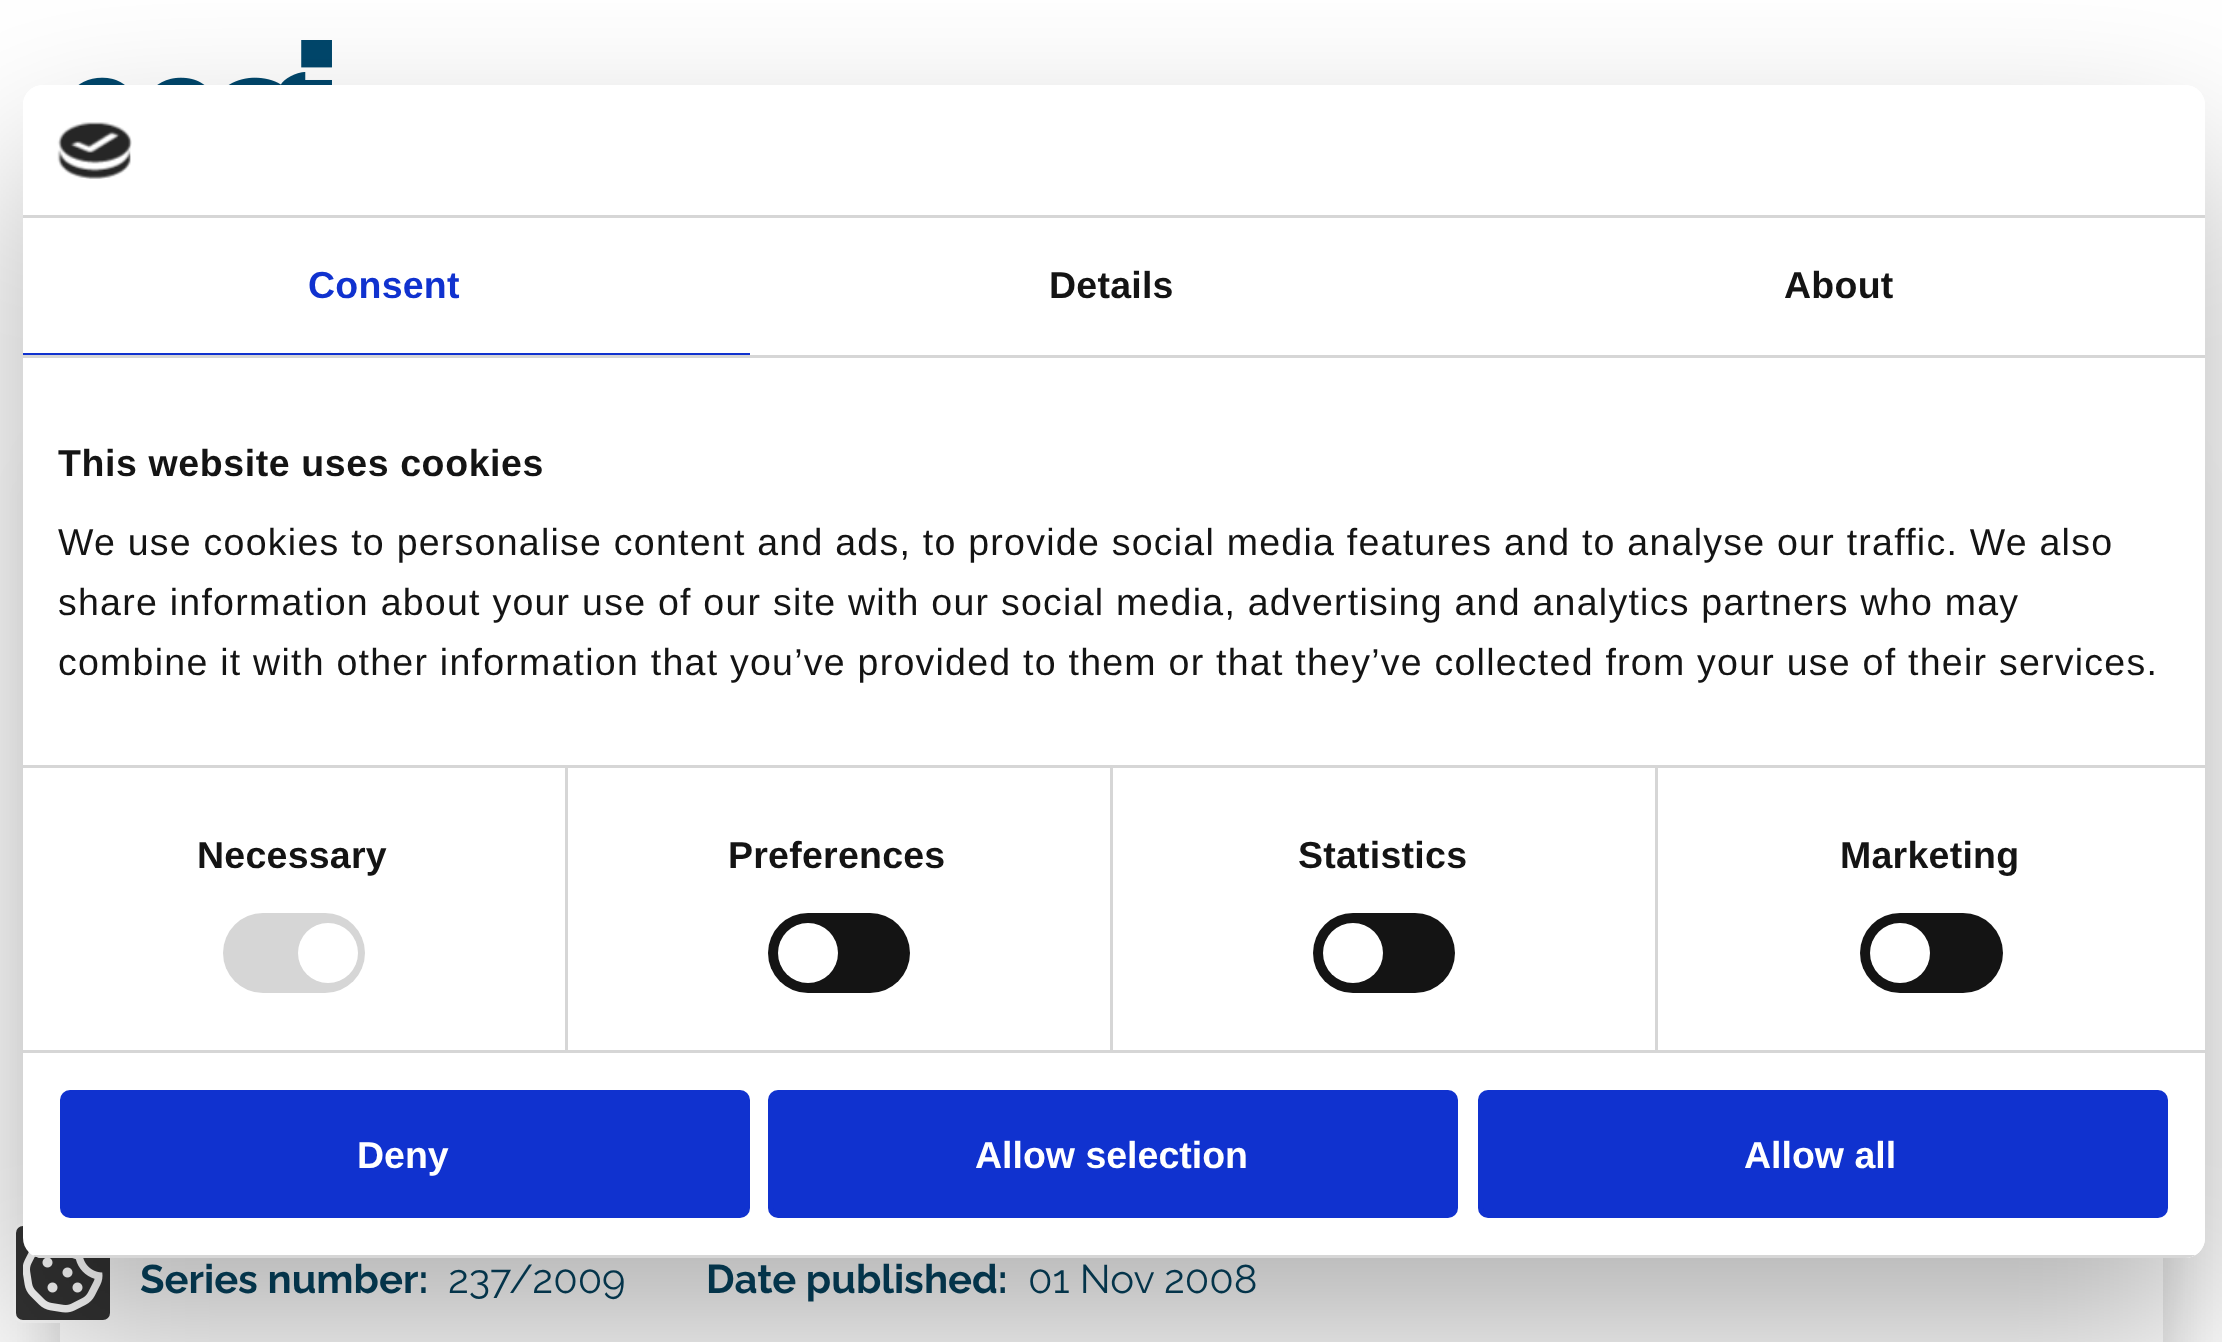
<!DOCTYPE html>
<meta charset="utf-8">
<style>body { margin: 0 } canvas { display: block }</style>
<canvas id="canvas" width="2222" height="1342"></canvas>
<img id="img1" src="img_02.png" hidden>
<img id="img2" src="img_03.png" hidden>
<img id="img3" src="img_01.png" hidden>
<script>
window.onload = function () {
	const canvas = document.getElementById("canvas");
	const ctx = canvas.getContext("2d");
	ctx.miterLimit = 4;
	ctx.fontKerning = "normal";
	function txt(s, x, y) {
		ctx.fillText(s, x, y);
	}
	function fill(x, y, w, h) {
		ctx.fillRect(x, y, w, h);
	}
	function round(x, y, w, h, r) {
		ctx.beginPath();
		ctx.roundRect(x, y, w, h, r);
		ctx.fill();
	}
	function img(id, x, y, w, h) {
		ctx.drawImage(document.getElementById(id), x, y, w, h);
	}

	ctx.fillStyle = "#FFFFFF";
	fill(0, 0, 2222, 1342);
	ctx.fillStyle = "rgba(0, 0, 0, 0.15)";
	ctx.filter = "blur(30px)";
	ctx.beginPath();
	ctx.roundRect(60, 453, 2103, 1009, 30);
	ctx.fill();
	ctx.filter = "none";
	ctx.fillStyle = "#FFFFFF";
	fill(60, 1258, 2103, 84);
	ctx.fillStyle = "#333333";
	ctx.beginPath();
	ctx.roundRect(14.5, 1224.5, 97, 97, 8.5);
	ctx.fill();
	ctx.strokeStyle = "#FFFFFF";
	ctx.lineWidth = 3;
	ctx.stroke();
	img("img1", 23, 1252, 80, 61);
	img("img2", 78, 40, 254, 45);
	ctx.save();
	ctx.beginPath();
	ctx.moveTo(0, 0);
	ctx.lineTo(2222, 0);
	ctx.lineTo(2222, 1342);
	ctx.lineTo(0, 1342);
	ctx.closePath();
	ctx.moveTo(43, 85);
	ctx.lineTo(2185, 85);
	ctx.bezierCurveTo(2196, 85, 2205, 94, 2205, 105);
	ctx.lineTo(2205, 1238);
	ctx.bezierCurveTo(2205, 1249, 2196, 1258, 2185, 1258);
	ctx.lineTo(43, 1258);
	ctx.bezierCurveTo(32, 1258, 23, 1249, 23, 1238);
	ctx.lineTo(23, 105);
	ctx.bezierCurveTo(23, 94, 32, 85, 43, 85);
	ctx.closePath();
	ctx.clip("evenodd");
	ctx.fillStyle = "rgba(0, 0, 0, 0.3)";
	ctx.filter = "blur(85px)";
	ctx.beginPath();
	ctx.roundRect(23, 165, 2182, 1173, 20);
	ctx.fill();
	ctx.filter = "none";
	ctx.restore();
	ctx.fillStyle = "#FFFFFF";
	round(23, 85, 2182, 1173, 20);
	ctx.fillStyle = "#D6D6D6";
	fill(23, 215, 2182, 3);
	img("img3", 57, 122, 75, 57);
	fill(23, 355, 2182, 3);
	ctx.fillStyle = "#1032CF";
	fill(23, 353, 727, 2);
	ctx.fillStyle = "#D6D6D6";
	fill(23, 765, 2182, 3);
	fill(23, 1050, 2182, 3);
	fill(565, 768, 3, 282);
	round(223, 913, 142, 80, 40);
	ctx.fillStyle = "#FFFFFF";
	ctx.beginPath();
	ctx.arc(328, 953, 30, 0, Math.PI * 2);
	ctx.fill();
	ctx.fillStyle = "#D6D6D6";
	fill(1110, 768, 3, 282);
	ctx.fillStyle = "#141414";
	round(768, 913, 142, 80, 40);
	ctx.fillStyle = "#FFFFFF";
	ctx.beginPath();
	ctx.arc(808, 953, 30, 0, Math.PI * 2);
	ctx.fill();
	ctx.fillStyle = "#D6D6D6";
	fill(1655, 768, 3, 282);
	ctx.fillStyle = "#141414";
	round(1313, 913, 142, 80, 40);
	ctx.fillStyle = "#FFFFFF";
	ctx.beginPath();
	ctx.arc(1353, 953, 30, 0, Math.PI * 2);
	ctx.fill();
	ctx.fillStyle = "#141414";
	round(1860, 913, 143, 80, 40);
	ctx.fillStyle = "#FFFFFF";
	ctx.beginPath();
	ctx.arc(1900, 953, 30, 0, Math.PI * 2);
	ctx.fill();
	ctx.save();
	ctx.beginPath();
	ctx.roundRect(23, 85, 2182, 1173, 20);
	ctx.clip();
	ctx.fillStyle = "#D6D6D6";
	fill(32, 1255, 2164, 3);
	ctx.restore();
	ctx.fillStyle = "#1032CF";
	ctx.beginPath();
	ctx.roundRect(62.5, 1092.5, 685, 123, 7.5);
	ctx.fill();
	ctx.strokeStyle = "#1032CF";
	ctx.lineWidth = 5;
	ctx.stroke();
	ctx.beginPath();
	ctx.roundRect(770.5, 1092.5, 685, 123, 7.5);
	ctx.fill();
	ctx.stroke();
	ctx.beginPath();
	ctx.roundRect(1480.5, 1092.5, 685, 123, 7.5);
	ctx.fill();
	ctx.stroke();
	ctx.letterSpacing = "0.25px";
	ctx.font = "bold 37.5px Liberation Sans";
	txt("Consent", 308, 298);
	ctx.fillStyle = "#141414";
	txt("Details", 1049, 298);
	txt("About", 1784, 298);
	ctx.letterSpacing = "0.6px";
	txt("This website uses cookies", 58, 476);
	ctx.letterSpacing = "1.25px";
	ctx.font = "37.5px Liberation Sans";
	txt("We use cookies to personalise content and ads, to provide social media features and to analyse our traffic. We also", 58, 555);
	txt("share information about your use of our site with our social media, advertising and analytics partners who may", 58, 615);
	txt("combine it with other information that you’ve provided to them or that they’ve collected from your use of their services.", 58, 675);
	ctx.letterSpacing = "0.25px";
	ctx.font = "bold 37.5px Liberation Sans";
	txt("Necessary", 197, 868);
	txt("Preferences", 728, 868);
	txt("Statistics", 1298, 868);
	txt("Marketing", 1840, 868);
	ctx.letterSpacing = "0px";
	ctx.fillStyle = "#FFFFFF";
	txt("Deny", 357, 1168);
	txt("Allow selection", 975, 1168);
	txt("Allow all", 1744, 1168);
	ctx.font = "100 40px Raleway";
	ctx.fillStyle = "#04344A";
	txt("Series number:", 140, 1293);
	ctx.font = "100 40px 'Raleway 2'";
	txt("237/2009", 448, 1293);
	ctx.font = "100 40px Raleway";
	txt("Date published:", 706, 1293);
	ctx.font = "100 40px 'Raleway 2'";
	txt("01 Nov 2008", 1028, 1293);
};
</script>
